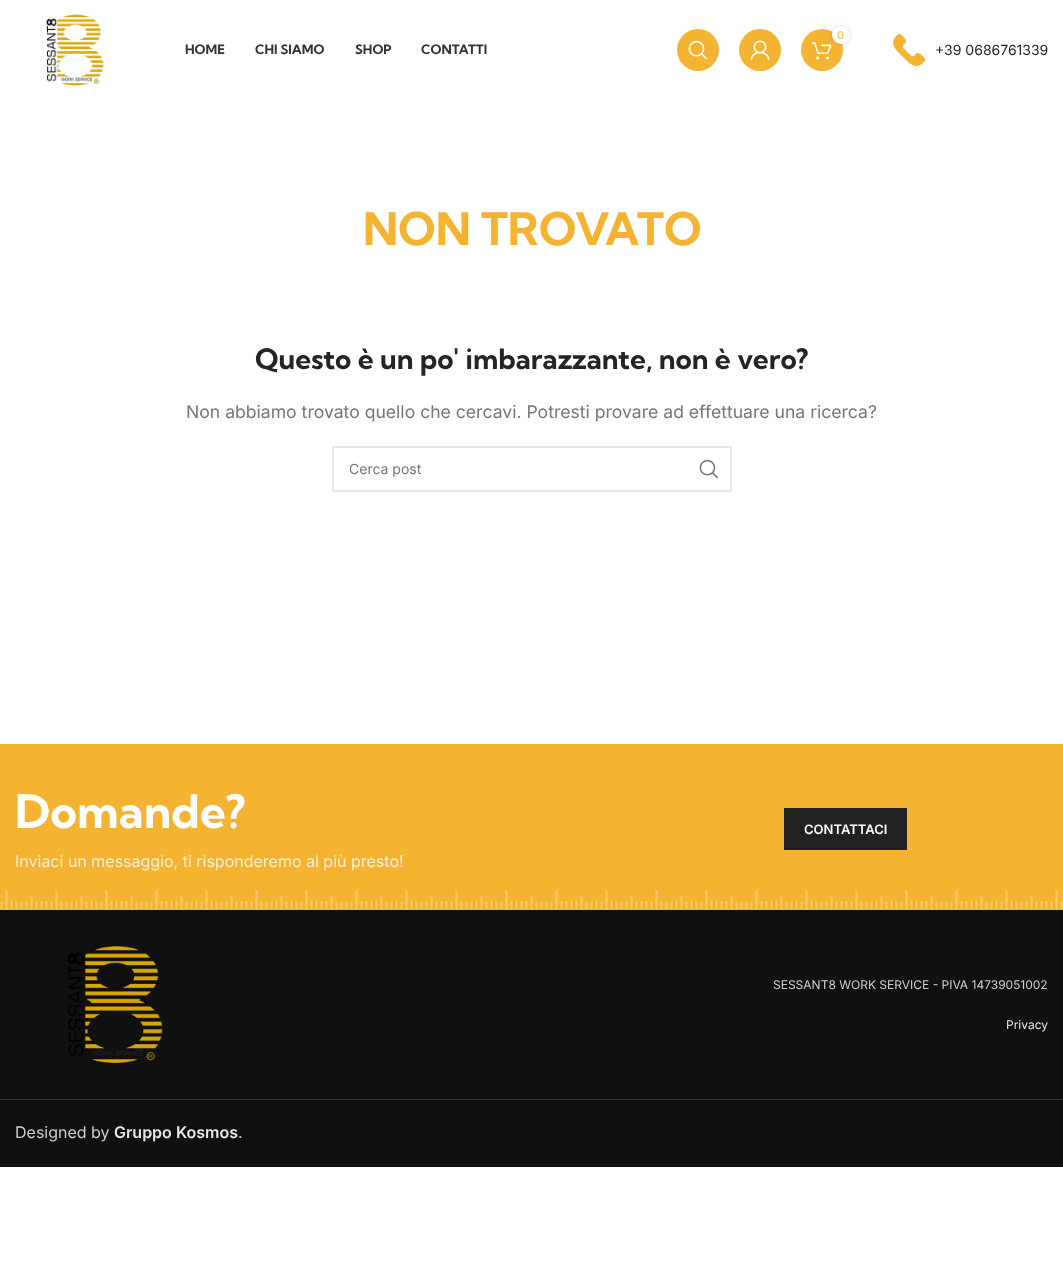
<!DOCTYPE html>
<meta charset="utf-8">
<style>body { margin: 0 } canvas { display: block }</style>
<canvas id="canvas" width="1063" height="1288"></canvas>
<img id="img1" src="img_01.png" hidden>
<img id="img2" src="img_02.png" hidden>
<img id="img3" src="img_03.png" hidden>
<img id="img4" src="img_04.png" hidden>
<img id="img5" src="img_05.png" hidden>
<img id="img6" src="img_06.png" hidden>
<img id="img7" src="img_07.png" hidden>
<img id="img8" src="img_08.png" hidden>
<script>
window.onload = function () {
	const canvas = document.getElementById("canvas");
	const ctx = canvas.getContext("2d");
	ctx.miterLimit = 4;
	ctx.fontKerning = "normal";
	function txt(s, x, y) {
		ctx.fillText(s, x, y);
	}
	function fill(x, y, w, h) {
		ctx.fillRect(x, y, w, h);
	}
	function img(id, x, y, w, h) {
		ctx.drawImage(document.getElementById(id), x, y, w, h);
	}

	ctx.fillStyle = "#FFFFFF";
	fill(0, 0, 1063, 1288);
	img("img1", 46, 14, 58, 72);
	ctx.fillStyle = "#F5B332";
	ctx.beginPath();
	ctx.arc(698, 50, 21, 0, Math.PI * 2);
	ctx.fill();
	img("img2", 688, 40, 20, 20);
	ctx.beginPath();
	ctx.arc(760, 50, 21, 0, Math.PI * 2);
	ctx.fill();
	img("img3", 750, 40, 20, 20);
	ctx.beginPath();
	ctx.arc(822, 50, 21, 0, Math.PI * 2);
	ctx.fill();
	img("img4", 812, 42, 20, 18);
	ctx.fillStyle = "rgba(0, 0, 0, 0.17)";
	ctx.filter = "blur(2px)";
	ctx.beginPath();
	ctx.roundRect(832, 26, 18, 18, 9);
	ctx.fill();
	ctx.filter = "none";
	ctx.fillStyle = "#FFFFFF";
	ctx.beginPath();
	ctx.arc(841, 35, 9, 0, Math.PI * 2);
	ctx.fill();
	img("img5", 893, 34, 32, 32);
	ctx.strokeStyle = "#E6E6E6";
	ctx.lineWidth = 2;
	ctx.strokeRect(333, 447, 398, 44);
	img("img6", 699, 459, 20, 20);
	ctx.fillStyle = "#101010";
	fill(0, 910, 1063, 257);
	ctx.fillStyle = "#F5B332";
	fill(0, 744, 1063, 166);
	img("img7", 0, 890, 1063, 20);
	ctx.fillStyle = "#212121";
	fill(784, 808, 123, 42);
	img("img8", 68, 946, 95, 117);
	ctx.fillStyle = "#343434";
	fill(0, 1099, 1063, 1);
	ctx.font = "bold 13px Kumbh Sans";
	ctx.fillStyle = "#333333";
	txt("HOME", 185, 54);
	txt("CHI SIAMO", 255, 54);
	txt("SHOP", 355, 54);
	txt("CONTATTI", 421, 54);
	ctx.font = "11px Inter";
	ctx.fillStyle = "#F5B332";
	txt("0", 837, 39);
	ctx.font = "14px Inter";
	ctx.fillStyle = "#242424";
	txt("+39 0686761339", 935, 55);
	ctx.font = "bold 44.75px Kumbh Sans";
	ctx.fillStyle = "#F5B332";
	txt("NON TROVATO", 363, 245);
	ctx.font = "bold 28px Kumbh Sans";
	ctx.fillStyle = "#242424";
	txt("Questo è un po' imbarazzante, non è vero?", 255, 369);
	ctx.font = "17.6px Inter";
	ctx.fillStyle = "#767676";
	txt("Non abbiamo trovato quello che cercavi. Potresti provare ad effettuare una ricerca?", 186, 418);
	ctx.font = "14px Inter";
	txt("Cerca post", 349, 474);
	ctx.font = "bold 46px Kumbh Sans";
	ctx.fillStyle = "#FFFFFF";
	txt("Domande?", 15, 828);
	ctx.font = "16px Inter";
	ctx.fillStyle = "#FDF0D6";
	txt("Inviaci un messaggio, ti risponderemo al più presto!", 15, 867);
	ctx.font = "600 13px Inter";
	ctx.fillStyle = "#FFFFFF";
	txt("CONTATTACI", 804, 834);
	ctx.font = "12px Inter";
	ctx.fillStyle = "#CFCFCF";
	txt("SESSANT8 WORK SERVICE - PIVA 14739051002", 773, 989);
	ctx.fillStyle = "#E7E7E7";
	txt("Privacy", 1006, 1029);
	ctx.font = "16px Inter";
	ctx.fillStyle = "#CFCFCF";
	txt("Designed by", 15, 1138);
	ctx.font = "600 16px Inter";
	ctx.fillStyle = "#E7E7E7";
	txt("Gruppo Kosmos", 114, 1138);
	ctx.font = "16px Inter";
	ctx.fillStyle = "#CFCFCF";
	txt(".", 238, 1138);
};
</script>
